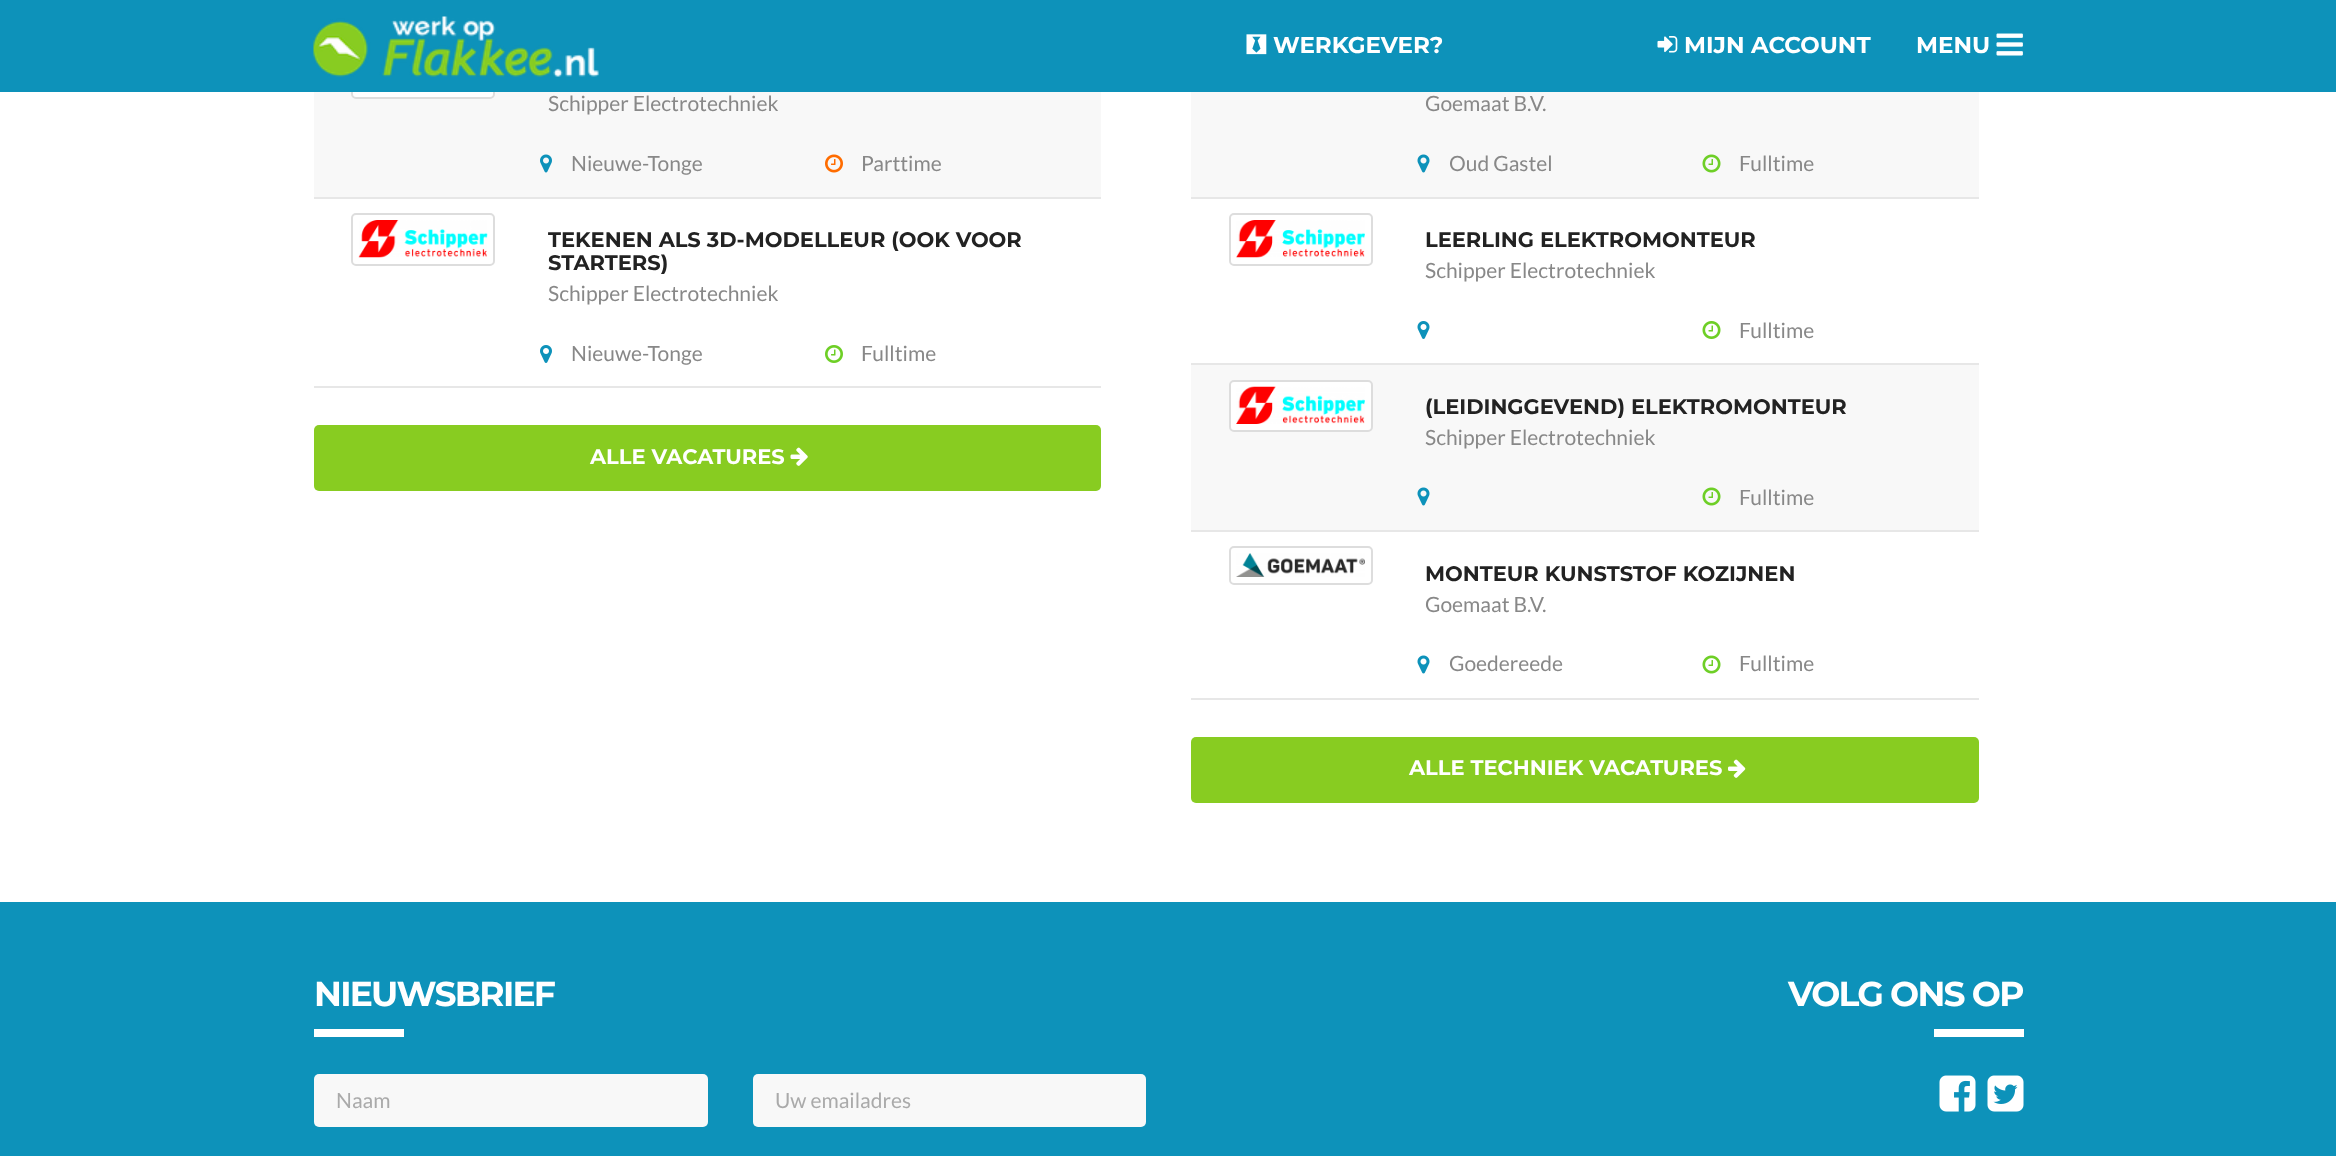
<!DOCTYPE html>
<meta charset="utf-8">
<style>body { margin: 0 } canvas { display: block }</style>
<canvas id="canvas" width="2336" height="1156"></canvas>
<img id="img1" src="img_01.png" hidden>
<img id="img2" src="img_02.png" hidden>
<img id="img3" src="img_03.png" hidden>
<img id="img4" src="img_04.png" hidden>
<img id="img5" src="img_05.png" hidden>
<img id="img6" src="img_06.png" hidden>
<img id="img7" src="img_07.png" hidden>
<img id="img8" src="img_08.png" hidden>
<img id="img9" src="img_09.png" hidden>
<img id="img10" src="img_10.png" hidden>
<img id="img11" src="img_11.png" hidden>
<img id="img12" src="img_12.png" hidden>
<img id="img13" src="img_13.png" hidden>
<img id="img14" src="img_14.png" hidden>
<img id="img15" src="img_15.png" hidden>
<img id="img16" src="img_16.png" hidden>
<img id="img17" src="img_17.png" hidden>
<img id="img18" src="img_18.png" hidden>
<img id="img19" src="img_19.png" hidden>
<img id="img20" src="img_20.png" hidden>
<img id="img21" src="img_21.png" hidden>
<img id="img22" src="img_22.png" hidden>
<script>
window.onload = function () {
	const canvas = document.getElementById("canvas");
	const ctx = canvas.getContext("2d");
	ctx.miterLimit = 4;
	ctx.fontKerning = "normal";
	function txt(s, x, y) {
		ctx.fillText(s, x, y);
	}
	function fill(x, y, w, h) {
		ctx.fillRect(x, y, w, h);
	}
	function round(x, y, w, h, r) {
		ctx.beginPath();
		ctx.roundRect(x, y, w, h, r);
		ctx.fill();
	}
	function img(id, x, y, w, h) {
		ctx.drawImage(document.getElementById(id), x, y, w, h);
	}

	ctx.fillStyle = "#FFFFFF";
	fill(0, 0, 2336, 1156);
	ctx.fillStyle = "#F8F8F8";
	fill(314, 92, 787, 105);
	ctx.fillStyle = "#FFFFFF";
	ctx.beginPath();
	ctx.roundRect(352, 48, 142, 50, 4);
	ctx.fill();
	ctx.strokeStyle = "#DDDDDD";
	ctx.lineWidth = 2;
	ctx.stroke();
	ctx.fillStyle = "#0D92BA";
	fill(0, 0, 2336, 92);
	img("img1", 313, 16, 286, 61);
	img("img2", 1246, 34, 21, 21);
	img("img3", 1657, 36, 21, 17);
	img("img4", 1996, 33, 27, 23);
	ctx.fillStyle = "#E7E7E7";
	fill(314, 197, 787, 2);
	img("img5", 540, 154, 12, 19);
	img("img6", 825, 154, 18, 19);
	fill(314, 386, 787, 2);
	ctx.beginPath();
	ctx.roundRect(352, 214, 142, 51, 4);
	ctx.stroke();
	img("img7", 358, 220, 130, 38);
	img("img8", 540, 345, 12, 18);
	img("img9", 825, 345, 18, 18);
	ctx.fillStyle = "#88CC21";
	round(314, 425, 787, 66, 5);
	img("img10", 790, 447, 18, 19);
	ctx.fillStyle = "#F8F8F8";
	fill(1191, 92, 788, 105);
	ctx.fillStyle = "#E7E7E7";
	fill(1191, 197, 788, 2);
	img("img11", 1417, 154, 13, 19);
	img("img12", 1702, 154, 19, 19);
	fill(1191, 363, 788, 2);
	ctx.beginPath();
	ctx.roundRect(1230, 214, 142, 51, 4);
	ctx.stroke();
	img("img13", 1236, 220, 129, 38);
	img("img14", 1417, 321, 13, 18);
	img("img15", 1702, 321, 19, 18);
	ctx.fillStyle = "#F8F8F8";
	fill(1191, 365, 788, 165);
	ctx.fillStyle = "#E7E7E7";
	fill(1191, 530, 788, 2);
	ctx.fillStyle = "#FFFFFF";
	ctx.beginPath();
	ctx.roundRect(1230, 381, 142, 50, 4);
	ctx.fill();
	ctx.stroke();
	img("img16", 1236, 386, 129, 38);
	img("img11", 1417, 487, 13, 19);
	img("img12", 1702, 487, 19, 19);
	ctx.fillStyle = "#E7E7E7";
	fill(1191, 698, 788, 2);
	ctx.beginPath();
	ctx.roundRect(1230, 547, 142, 37, 4);
	ctx.stroke();
	img("img17", 1236, 553, 129, 24);
	img("img18", 1417, 655, 13, 19);
	img("img19", 1702, 655, 19, 19);
	ctx.fillStyle = "#88CC21";
	round(1191, 737, 788, 66, 5);
	img("img20", 1728, 759, 18, 19);
	ctx.fillStyle = "#0D92BA";
	fill(0, 902, 2336, 254);
	ctx.fillStyle = "#FFFFFF";
	fill(314, 1029, 90, 8);
	ctx.fillStyle = "#F8F8F8";
	round(314, 1074, 394, 53, 5);
	round(753, 1074, 393, 53, 5);
	ctx.fillStyle = "#FFFFFF";
	fill(1934, 1029, 90, 8);
	img("img21", 1939, 1075, 37, 37);
	img("img22", 1987, 1075, 37, 37);
	ctx.font = "100 23px Montserrat";
	txt("WERKGEVER?", 1273, 53);
	txt("MIJN ACCOUNT", 1684, 53);
	txt("MENU", 1916, 53);
	ctx.font = "21px Lato";
	ctx.fillStyle = "#888888";
	txt("Schipper Electrotechniek", 548, 111);
	txt("Nieuwe-Tonge", 571, 171);
	txt("Parttime", 861, 171);
	ctx.font = "100 21px Montserrat";
	ctx.fillStyle = "#222222";
	txt("TEKENEN ALS 3D-MODELLEUR (OOK VOOR", 548, 247);
	txt("STARTERS)", 548, 270);
	ctx.font = "21px Lato";
	ctx.fillStyle = "#888888";
	txt("Schipper Electrotechniek", 548, 301);
	txt("Nieuwe-Tonge", 571, 361);
	txt("Fulltime", 861, 361);
	ctx.font = "100 21px Montserrat";
	ctx.fillStyle = "#FFFFFF";
	txt("ALLE VACATURES", 590, 464);
	ctx.font = "21px Lato";
	ctx.fillStyle = "#888888";
	txt("Goemaat B.V.", 1425, 111);
	txt("Oud Gastel", 1449, 171);
	txt("Fulltime", 1739, 171);
	ctx.font = "100 21px Montserrat";
	ctx.fillStyle = "#222222";
	txt("LEERLING ELEKTROMONTEUR", 1425, 247);
	ctx.font = "21px Lato";
	ctx.fillStyle = "#888888";
	txt("Schipper Electrotechniek", 1425, 278);
	txt("Fulltime", 1739, 338);
	ctx.font = "100 21px Montserrat";
	ctx.fillStyle = "#222222";
	txt("(LEIDINGGEVEND) ELEKTROMONTEUR", 1425, 414);
	ctx.font = "21px Lato";
	ctx.fillStyle = "#888888";
	txt("Schipper Electrotechniek", 1425, 445);
	txt("Fulltime", 1739, 505);
	ctx.font = "100 21px Montserrat";
	ctx.fillStyle = "#222222";
	txt("MONTEUR KUNSTSTOF KOZIJNEN", 1425, 581);
	ctx.font = "21px Lato";
	ctx.fillStyle = "#888888";
	txt("Goemaat B.V.", 1425, 612);
	txt("Goedereede", 1449, 671);
	txt("Fulltime", 1739, 671);
	ctx.font = "100 21px Montserrat";
	ctx.fillStyle = "#FFFFFF";
	txt("ALLE TECHNIEK VACATURES", 1409, 775);
	ctx.letterSpacing = "-1.75px";
	ctx.font = "100 34.5px Montserrat";
	txt("NIEUWSBRIEF", 314, 1006);
	ctx.letterSpacing = "0px";
	ctx.font = "21px Lato";
	ctx.fillStyle = "#AAAAAA";
	txt("Naam", 336, 1108);
	txt("Uw emailadres", 775, 1108);
	ctx.letterSpacing = "-1.75px";
	ctx.font = "100 34.5px Montserrat";
	ctx.fillStyle = "#FFFFFF";
	txt("VOLG ONS OP", 1788, 1006);
};
</script>
